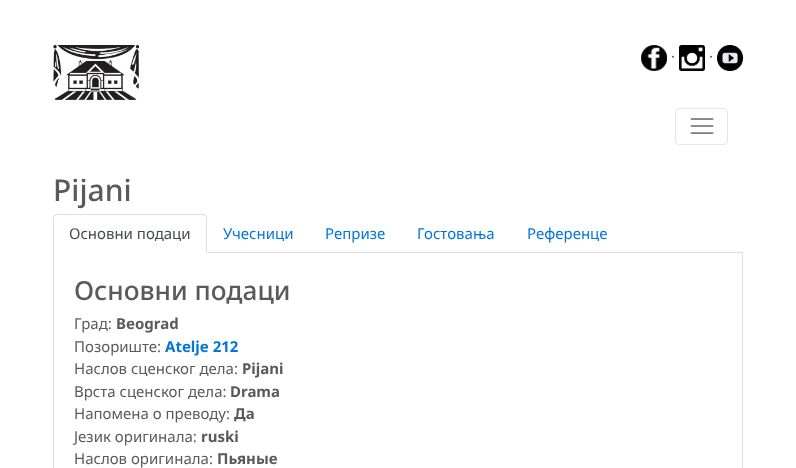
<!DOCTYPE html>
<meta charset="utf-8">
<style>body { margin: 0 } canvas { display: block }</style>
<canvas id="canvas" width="796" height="468"></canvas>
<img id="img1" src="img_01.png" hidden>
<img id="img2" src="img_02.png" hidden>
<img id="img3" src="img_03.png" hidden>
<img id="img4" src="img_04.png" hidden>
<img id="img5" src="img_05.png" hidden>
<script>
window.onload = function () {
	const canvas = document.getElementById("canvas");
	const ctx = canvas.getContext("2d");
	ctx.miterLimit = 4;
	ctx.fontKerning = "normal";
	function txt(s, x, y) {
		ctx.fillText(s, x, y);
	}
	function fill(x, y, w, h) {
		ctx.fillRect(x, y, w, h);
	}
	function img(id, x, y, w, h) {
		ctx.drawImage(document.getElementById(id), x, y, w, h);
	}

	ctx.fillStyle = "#FFFFFF";
	fill(0, 0, 796, 468);
	img("img1", 53, 45, 86, 55);
	img("img2", 641, 45, 26, 26);
	img("img3", 679, 45, 26, 26);
	img("img4", 717, 45, 26, 26);
	ctx.beginPath();
	ctx.roundRect(675.5, 108.5, 52, 36, 3.5);
	ctx.strokeStyle = "#E6E6E6";
	ctx.stroke();
	img("img5", 690, 118, 24, 16);
	ctx.fillStyle = "#DDDDDD";
	fill(207, 252, 536, 1);
	ctx.beginPath();
	ctx.moveTo(57, 214);
	ctx.lineTo(54, 215);
	ctx.lineTo(55, 216);
	ctx.lineTo(57, 215);
	ctx.lineTo(203, 215);
	ctx.lineTo(205, 216);
	ctx.lineTo(206, 215);
	ctx.lineTo(203, 214);
	ctx.closePath();
	ctx.fill();
	ctx.beginPath();
	ctx.moveTo(207, 253);
	ctx.lineTo(207, 218);
	ctx.bezierCurveTo(207, 217, 206.5, 216, 206, 215);
	ctx.lineTo(205, 216);
	ctx.bezierCurveTo(206, 216, 206, 217, 206, 218);
	ctx.lineTo(206, 252);
	ctx.closePath();
	ctx.fill();
	ctx.fillStyle = "#FFFFFF";
	ctx.beginPath();
	ctx.moveTo(207, 253);
	ctx.lineTo(206, 252);
	ctx.lineTo(54, 252);
	ctx.lineTo(53, 253);
	ctx.closePath();
	ctx.fill();
	ctx.fillStyle = "#DDDDDD";
	ctx.beginPath();
	ctx.moveTo(53, 253);
	ctx.lineTo(54, 252);
	ctx.lineTo(54, 218);
	ctx.bezierCurveTo(54, 217, 54, 216, 55, 216);
	ctx.lineTo(54, 215);
	ctx.bezierCurveTo(53.5, 216, 53, 217, 53, 218);
	ctx.closePath();
	ctx.fill();
	ctx.fillStyle = "#E0E0E0";
	fill(742, 253, 1, 215);
	fill(53, 253, 1, 215);
	ctx.font = "15px Noto Sans";
	ctx.fillStyle = "#5A5A5A";
	txt("·", 671, 62);
	txt("·", 709, 62);
	ctx.font = "500 30px Noto Sans";
	txt("Pijani", 53, 201);
	ctx.font = "15px Noto Sans";
	ctx.fillStyle = "#464A4C";
	txt("Основни подаци", 69, 239);
	ctx.fillStyle = "#0275D8";
	txt("Учесници", 223, 239);
	txt("Репризе", 325, 239);
	txt("Гостовања", 417, 239);
	txt("Референце", 527, 239);
	ctx.font = "500 26.25px Noto Sans";
	ctx.fillStyle = "#5A5A5A";
	txt("Основни подаци", 74, 300);
	ctx.font = "15px Noto Sans";
	txt("Град:", 74, 329);
	ctx.font = "bold 15px Noto Sans";
	txt("Beograd", 116, 329);
	ctx.font = "15px Noto Sans";
	txt("Позориште:", 74, 352);
	ctx.font = "bold 15px Noto Sans";
	ctx.fillStyle = "#0275D8";
	txt("Atelje 212", 165, 352);
	ctx.font = "15px Noto Sans";
	ctx.fillStyle = "#5A5A5A";
	txt("Наслов сценског дела:", 74, 374);
	ctx.font = "bold 15px Noto Sans";
	txt("Pijani", 242, 374);
	ctx.font = "15px Noto Sans";
	txt("Врста сценског дела:", 74, 397);
	ctx.font = "bold 15px Noto Sans";
	txt("Drama", 230, 397);
	ctx.font = "15px Noto Sans";
	txt("Напомена о преводу:", 74, 419);
	ctx.font = "bold 15px Noto Sans";
	txt("Да", 234, 419);
	ctx.font = "15px Noto Sans";
	txt("Језик оригинала:", 74, 442);
	ctx.font = "bold 15px Noto Sans";
	txt("ruski", 201, 442);
	ctx.font = "15px Noto Sans";
	txt("Наслов оригинала:", 74, 464);
	ctx.font = "bold 15px Noto Sans";
	txt("Пьяные", 217, 464);
};
</script>
